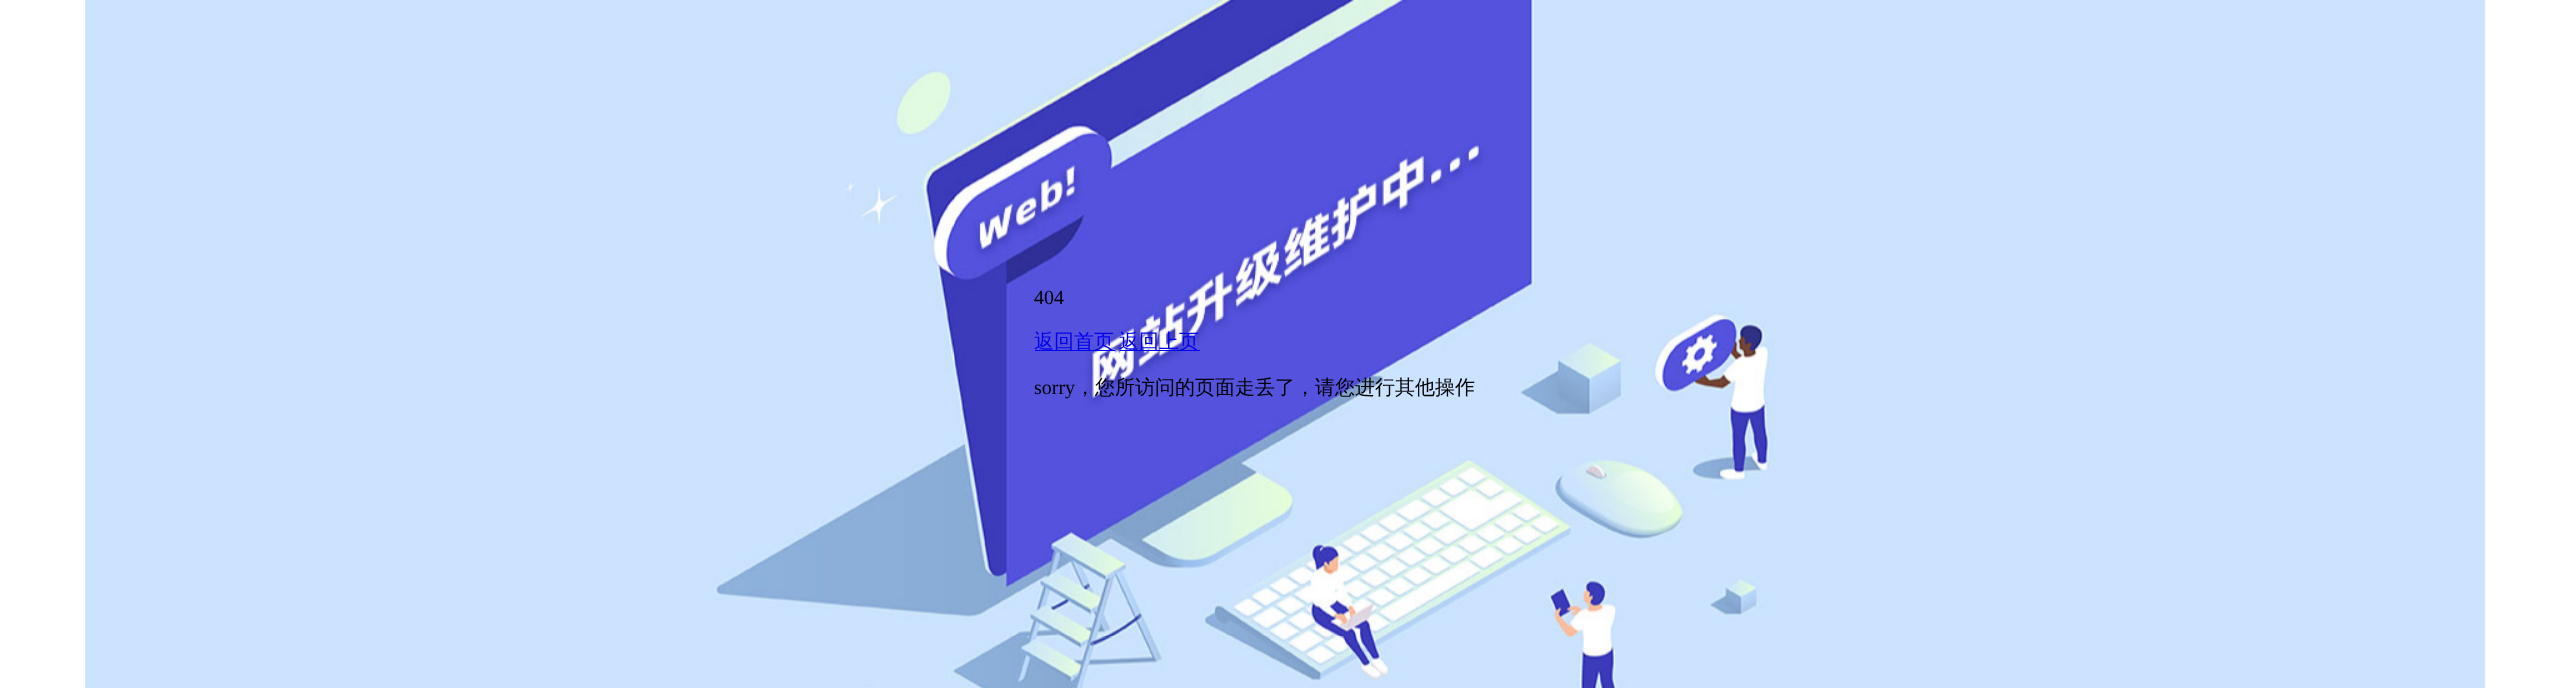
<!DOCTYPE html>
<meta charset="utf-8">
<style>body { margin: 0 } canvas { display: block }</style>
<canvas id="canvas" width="2568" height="688"></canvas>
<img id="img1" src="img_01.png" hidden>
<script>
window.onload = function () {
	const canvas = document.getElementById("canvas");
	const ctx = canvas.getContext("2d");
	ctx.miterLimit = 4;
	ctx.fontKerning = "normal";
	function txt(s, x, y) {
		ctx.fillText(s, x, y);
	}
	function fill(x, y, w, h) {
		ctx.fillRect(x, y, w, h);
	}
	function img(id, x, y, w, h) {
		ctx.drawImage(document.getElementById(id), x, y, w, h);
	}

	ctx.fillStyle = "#FFFFFF";
	fill(0, 0, 2568, 688);
	img("img1", 85, 0, 2401, 688);
	ctx.fillStyle = "#0000EE";
	fill(1035, 350, 80, 1);
	fill(1120, 350, 80, 1);
	ctx.font = "20px Liberation Serif";
	ctx.fillStyle = "#000000";
	txt("404", 1034, 304);
	ctx.font = "500 20px WenQuanYi Zen Hei";
	ctx.fillStyle = "#0000EE";
	txt("返回首页", 1034, 348);
	txt("返回上页", 1119, 348);
	ctx.font = "20px Liberation Serif";
	ctx.fillStyle = "#000000";
	txt("sorry", 1034, 394);
	ctx.font = "500 20px WenQuanYi Zen Hei";
	txt("，您所访问的页面走丢了，请您进行其他操作", 1075, 394);
};
</script>
